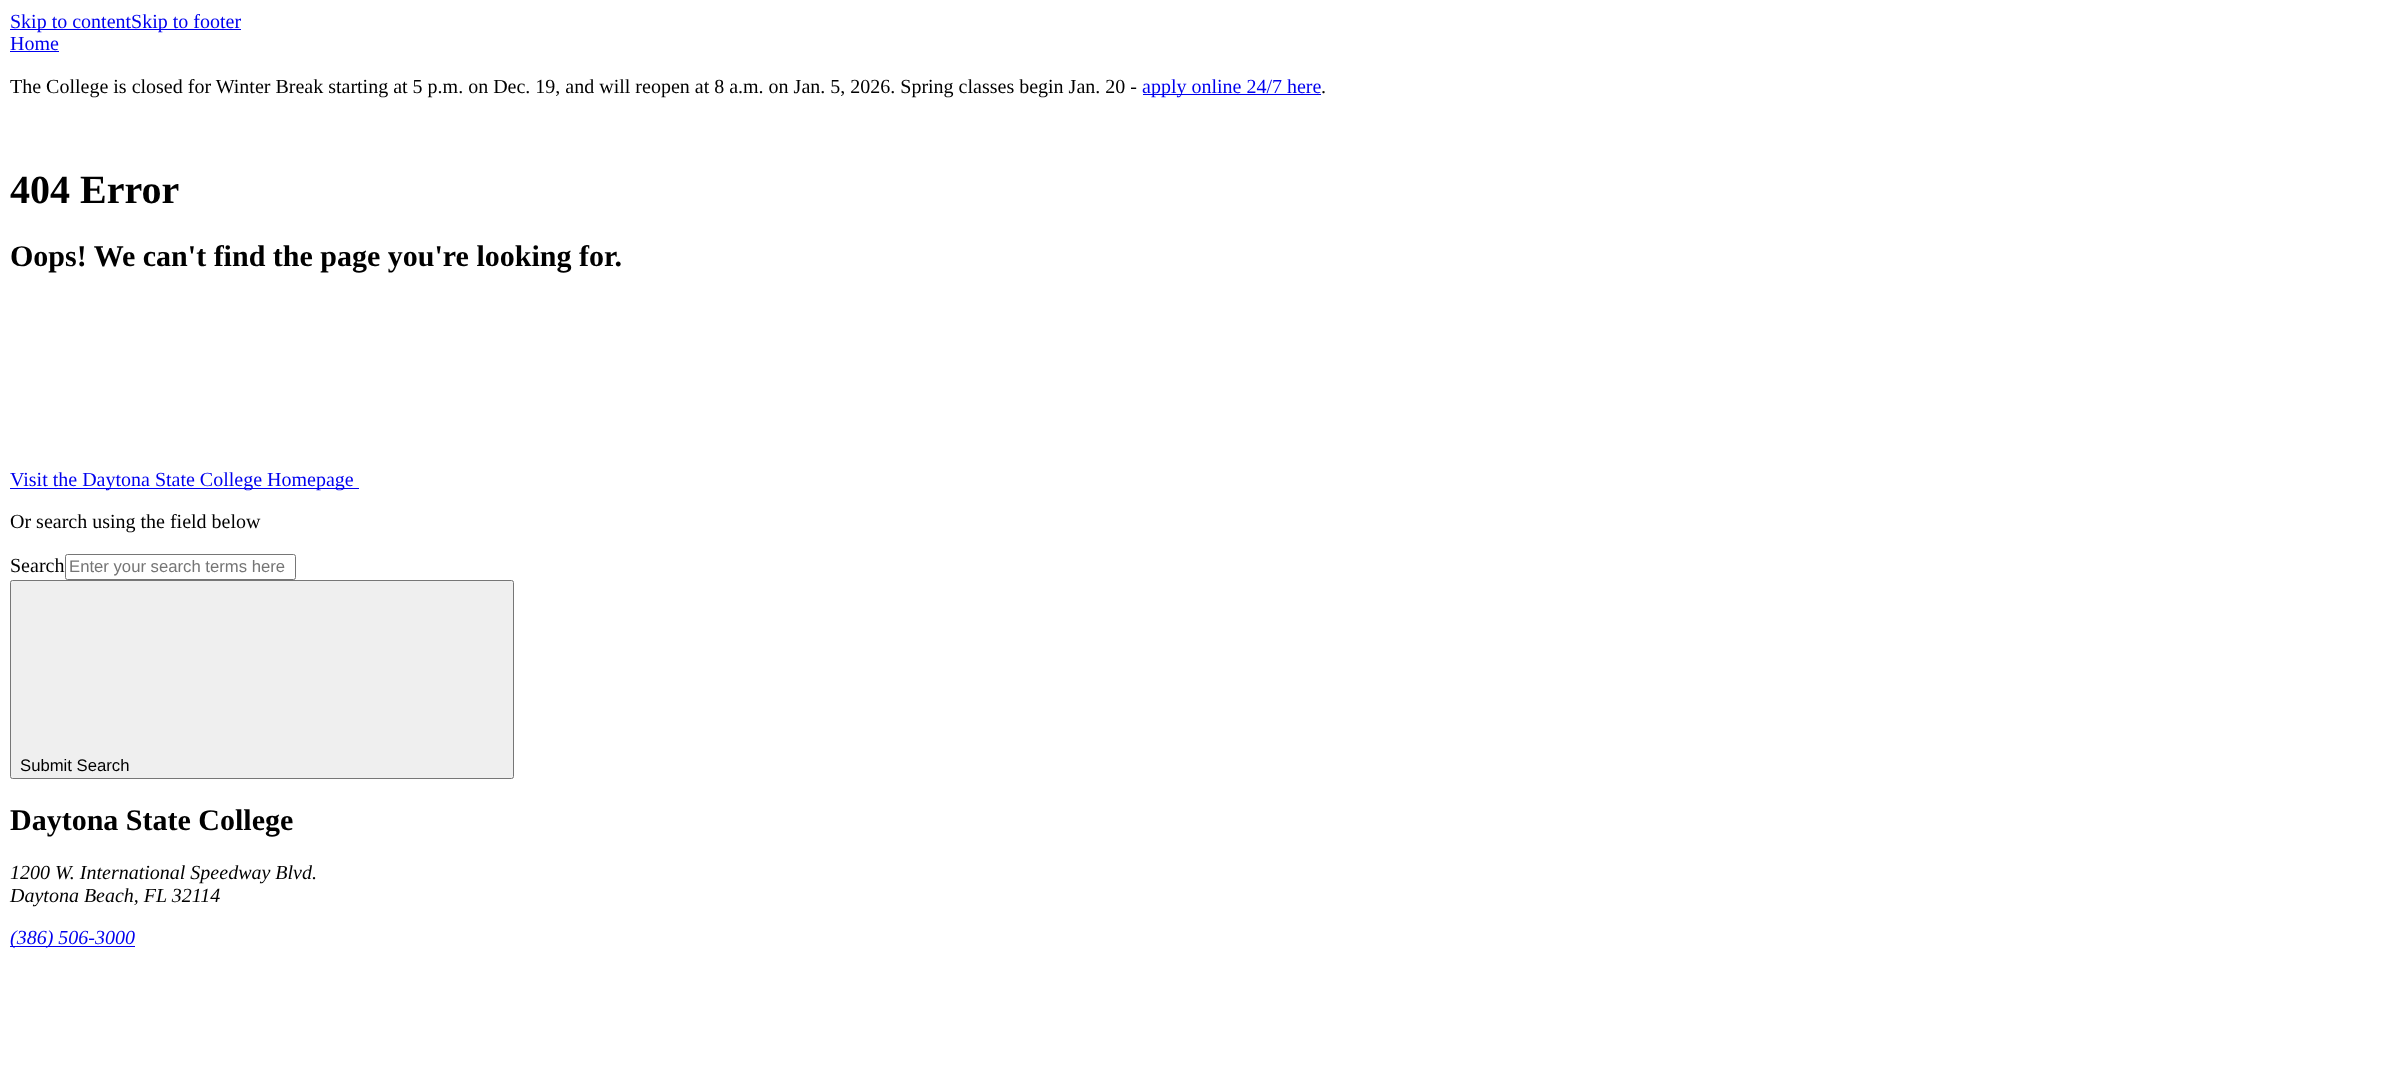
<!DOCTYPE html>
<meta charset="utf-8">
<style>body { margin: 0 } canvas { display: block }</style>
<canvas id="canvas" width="2387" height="1083"></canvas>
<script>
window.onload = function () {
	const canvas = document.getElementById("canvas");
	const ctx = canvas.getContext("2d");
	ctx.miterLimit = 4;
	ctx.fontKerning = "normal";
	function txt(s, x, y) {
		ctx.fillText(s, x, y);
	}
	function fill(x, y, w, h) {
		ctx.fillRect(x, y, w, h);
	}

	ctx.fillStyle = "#FFFFFF";
	fill(0, 0, 2387, 1083);
	ctx.fillStyle = "#0000EE";
	fill(10, 29, 231, 1);
	fill(10, 51, 49, 1);
	fill(1143, 94, 178, 1);
	fill(10, 488, 349, 1);
	ctx.beginPath();
	ctx.roundRect(65.5, 554.5, 230, 25, 2);
	ctx.strokeStyle = "#767676";
	ctx.stroke();
	ctx.fillStyle = "#EFEFEF";
	ctx.beginPath();
	ctx.roundRect(10.5, 580.5, 503, 198, 2);
	ctx.fill();
	ctx.stroke();
	ctx.fillStyle = "#0000EE";
	fill(10, 946, 125, 1);
	ctx.font = "20px Liberation Serif";
	txt("Skip to contentSkip to footer", 10, 28);
	txt("Home", 10, 50);
	ctx.fillStyle = "#000000";
	txt("The College is closed for Winter Break starting at 5 p.m. on Dec. 19, and will reopen at 8 a.m. on Jan. 5, 2026. Spring classes begin Jan. 20 -", 10, 93);
	ctx.fillStyle = "#0000EE";
	txt("apply online 24/7 here", 1142, 93);
	ctx.fillStyle = "#000000";
	txt(".", 1321, 93);
	ctx.font = "bold 40px Liberation Serif";
	txt("404 Error", 10, 203);
	ctx.font = "bold 30px Liberation Serif";
	txt("Oops! We can't find the page you're looking for.", 10, 266);
	ctx.font = "20px Liberation Serif";
	ctx.fillStyle = "#0000EE";
	txt("Visit the Daytona State College Homepage", 10, 486);
	ctx.fillStyle = "#000000";
	txt("Or search using the field below", 10, 528);
	txt("Search", 10, 572);
	ctx.font = "16.7px Liberation Sans";
	ctx.fillStyle = "#757575";
	txt("Enter your search terms here", 69, 572);
	ctx.fillStyle = "#000000";
	txt("Submit Search", 20, 771);
	ctx.font = "bold 30px Liberation Serif";
	txt("Daytona State College", 10, 830);
	ctx.font = "italic 20px Liberation Serif";
	txt("1200 W. International Speedway Blvd.", 10, 879);
	txt("Daytona Beach, FL 32114", 10, 902);
	ctx.fillStyle = "#0000EE";
	txt("(386) 506-3000", 10, 944);
};
</script>
